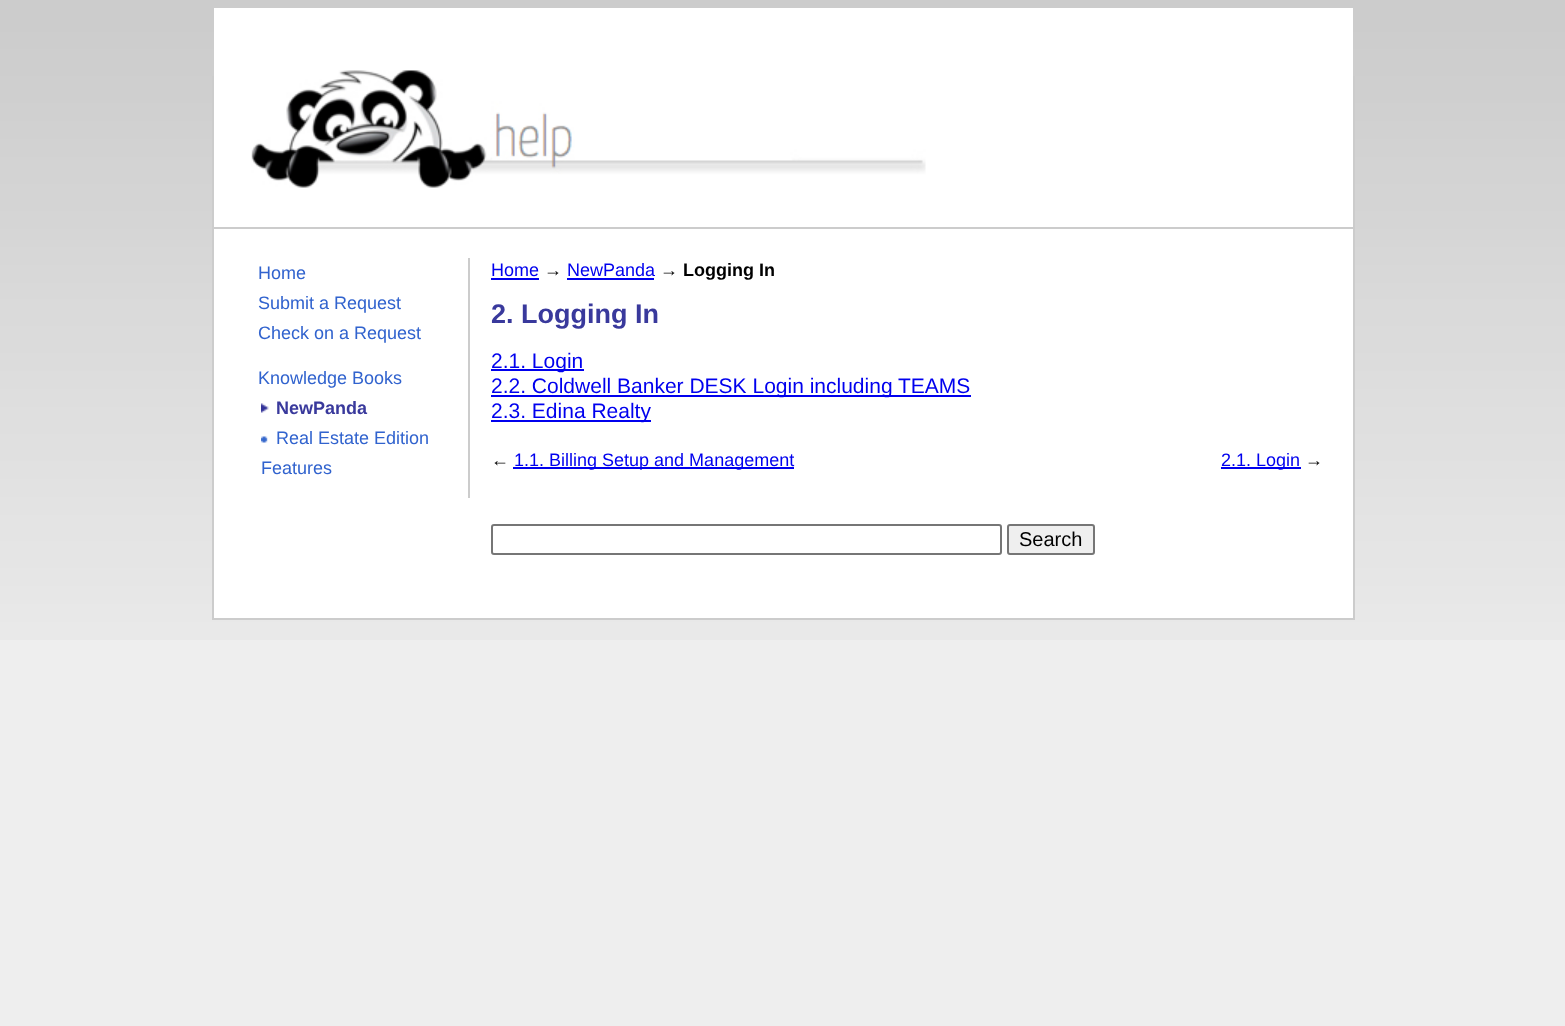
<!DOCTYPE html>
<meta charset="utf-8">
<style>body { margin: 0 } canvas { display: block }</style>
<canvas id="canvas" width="1565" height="1026"></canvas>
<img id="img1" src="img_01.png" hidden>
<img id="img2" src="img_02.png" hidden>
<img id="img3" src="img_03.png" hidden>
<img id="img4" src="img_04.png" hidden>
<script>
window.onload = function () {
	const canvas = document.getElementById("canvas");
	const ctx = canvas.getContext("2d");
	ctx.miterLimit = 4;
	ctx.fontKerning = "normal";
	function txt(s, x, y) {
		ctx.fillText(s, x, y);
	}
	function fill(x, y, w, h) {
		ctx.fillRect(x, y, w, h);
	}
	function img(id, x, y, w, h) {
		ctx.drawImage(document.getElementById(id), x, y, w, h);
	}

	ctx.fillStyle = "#EEEEEE";
	fill(0, 0, 1565, 1026);
	img("img1", 0, 0, 1565, 640);
	ctx.fillStyle = "#FFFFFF";
	fill(214, 8, 1139, 610);
	ctx.fillStyle = "#CCCCCC";
	fill(1353, 76, 2, 544);
	fill(212, 618, 1143, 2);
	fill(212, 76, 2, 544);
	fill(213, 227, 1140, 2);
	img("img2", 251, 70, 675, 118);
	fill(468, 258, 2, 240);
	img("img3", 261, 403, 8, 10);
	img("img4", 261, 436, 7, 7);
	ctx.fillStyle = "#0000EE";
	fill(491, 278, 48, 2);
	fill(567, 278, 87, 2);
	fill(491, 369, 93, 2);
	fill(491, 395, 480, 2);
	fill(491, 420, 160, 2);
	fill(513, 467, 281, 2);
	fill(1221, 467, 80, 2);
	ctx.beginPath();
	ctx.roundRect(492, 525, 509, 29, 2);
	ctx.strokeStyle = "#767676";
	ctx.lineWidth = 2;
	ctx.stroke();
	ctx.fillStyle = "#EFEFEF";
	ctx.beginPath();
	ctx.roundRect(1008, 525, 86, 29, 2);
	ctx.fill();
	ctx.stroke();
	ctx.font = "18px Liberation Sans";
	ctx.fillStyle = "#3163CE";
	txt("Home", 258, 279);
	txt("Submit a Request", 258, 309);
	txt("Check on a Request", 258, 339);
	txt("Knowledge Books", 258, 384);
	ctx.font = "bold 18px Liberation Sans";
	ctx.fillStyle = "#39399C";
	txt("NewPanda", 276, 414);
	ctx.font = "18px Liberation Sans";
	ctx.fillStyle = "#3163CE";
	txt("Real Estate Edition", 276, 444);
	txt("Features", 261, 474);
	ctx.fillStyle = "#0000EE";
	txt("Home", 491, 276);
	ctx.fillStyle = "#000000";
	txt("→", 544, 276);
	ctx.fillStyle = "#0000EE";
	txt("NewPanda", 567, 276);
	ctx.fillStyle = "#000000";
	txt("→", 660, 276);
	ctx.font = "bold 18px Liberation Sans";
	txt("Logging In", 683, 276);
	ctx.font = "bold 27px Liberation Sans";
	ctx.fillStyle = "#39399C";
	txt("2. Logging In", 491, 323);
	ctx.font = "21px Liberation Sans";
	ctx.fillStyle = "#0000EE";
	txt("2.1. Login", 491, 368);
	txt("2.2. Coldwell Banker DESK Login including TEAMS", 491, 393);
	txt("2.3. Edina Realty", 491, 418);
	ctx.font = "18px Liberation Sans";
	ctx.fillStyle = "#000000";
	txt("←", 491, 466);
	ctx.fillStyle = "#0000EE";
	txt("1.1. Billing Setup and Management", 514, 466);
	txt("2.1. Login", 1221, 466);
	ctx.fillStyle = "#000000";
	txt("→", 1305, 466);
	ctx.font = "20px Liberation Sans";
	txt("Search", 1019, 546);
};
</script>
